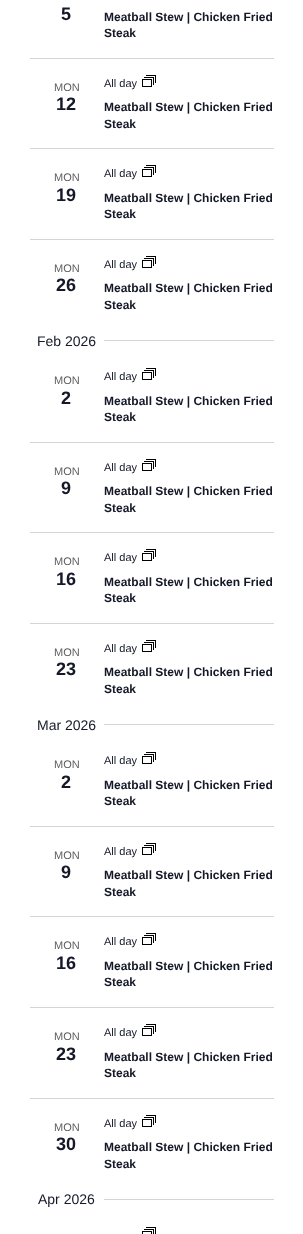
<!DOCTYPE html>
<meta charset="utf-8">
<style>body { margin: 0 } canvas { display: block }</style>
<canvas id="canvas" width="303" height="1234"></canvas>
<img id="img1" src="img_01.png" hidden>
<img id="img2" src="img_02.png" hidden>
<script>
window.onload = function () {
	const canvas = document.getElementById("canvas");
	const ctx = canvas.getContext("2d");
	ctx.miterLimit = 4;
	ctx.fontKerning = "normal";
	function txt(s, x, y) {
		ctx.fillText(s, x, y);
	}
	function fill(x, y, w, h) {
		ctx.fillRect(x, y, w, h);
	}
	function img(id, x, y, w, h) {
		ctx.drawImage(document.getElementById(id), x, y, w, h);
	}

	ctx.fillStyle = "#FFFFFF";
	fill(0, 0, 303, 1234);
	ctx.fillStyle = "#D5D5D5";
	fill(30, 58, 244, 1);
	img("img1", 142, 75, 14, 12);
	fill(30, 148, 244, 1);
	img("img1", 142, 165, 14, 12);
	fill(30, 239, 244, 1);
	img("img1", 142, 256, 14, 12);
	fill(104, 340, 170, 1);
	img("img1", 142, 368, 14, 12);
	fill(30, 442, 244, 1);
	img("img1", 142, 459, 14, 12);
	fill(30, 532, 244, 1);
	img("img1", 142, 549, 14, 12);
	fill(30, 623, 244, 1);
	img("img1", 142, 640, 14, 12);
	fill(104, 724, 170, 1);
	img("img1", 142, 752, 14, 12);
	fill(30, 826, 244, 1);
	img("img1", 142, 843, 14, 12);
	fill(30, 916, 244, 1);
	img("img1", 142, 933, 14, 12);
	fill(30, 1007, 244, 1);
	img("img1", 142, 1024, 14, 12);
	fill(30, 1098, 244, 1);
	img("img1", 142, 1115, 14, 12);
	fill(104, 1199, 170, 1);
	img("img2", 142, 1227, 14, 7);
	ctx.font = "bold 18px Liberation Sans";
	ctx.fillStyle = "#141827";
	txt("5", 61, 20);
	ctx.font = "bold 12px Liberation Sans";
	txt("Meatball Stew | Chicken Fried", 104, 21);
	txt("Steak", 104, 37);
	ctx.font = "11px Liberation Sans";
	ctx.fillStyle = "#5D5D5D";
	txt("MON", 54, 91);
	ctx.font = "bold 18px Liberation Sans";
	ctx.fillStyle = "#141827";
	txt("12", 56, 110);
	ctx.font = "11px Liberation Sans";
	txt("All day", 104, 87);
	ctx.font = "bold 12px Liberation Sans";
	txt("Meatball Stew | Chicken Fried", 104, 111);
	txt("Steak", 104, 128);
	ctx.font = "11px Liberation Sans";
	ctx.fillStyle = "#5D5D5D";
	txt("MON", 54, 181);
	ctx.font = "bold 18px Liberation Sans";
	ctx.fillStyle = "#141827";
	txt("19", 56, 201);
	ctx.font = "11px Liberation Sans";
	txt("All day", 104, 177);
	ctx.font = "bold 12px Liberation Sans";
	txt("Meatball Stew | Chicken Fried", 104, 202);
	txt("Steak", 104, 218);
	ctx.font = "11px Liberation Sans";
	ctx.fillStyle = "#5D5D5D";
	txt("MON", 54, 272);
	ctx.font = "bold 18px Liberation Sans";
	ctx.fillStyle = "#141827";
	txt("26", 56, 291);
	ctx.font = "11px Liberation Sans";
	txt("All day", 104, 268);
	ctx.font = "bold 12px Liberation Sans";
	txt("Meatball Stew | Chicken Fried", 104, 292);
	txt("Steak", 104, 309);
	ctx.font = "14px Liberation Sans";
	txt("Feb 2026", 37, 346);
	ctx.font = "11px Liberation Sans";
	ctx.fillStyle = "#5D5D5D";
	txt("MON", 54, 384);
	ctx.font = "bold 18px Liberation Sans";
	ctx.fillStyle = "#141827";
	txt("2", 61, 404);
	ctx.font = "11px Liberation Sans";
	txt("All day", 104, 380);
	ctx.font = "bold 12px Liberation Sans";
	txt("Meatball Stew | Chicken Fried", 104, 405);
	txt("Steak", 104, 421);
	ctx.font = "11px Liberation Sans";
	ctx.fillStyle = "#5D5D5D";
	txt("MON", 54, 475);
	ctx.font = "bold 18px Liberation Sans";
	ctx.fillStyle = "#141827";
	txt("9", 61, 494);
	ctx.font = "11px Liberation Sans";
	txt("All day", 104, 471);
	ctx.font = "bold 12px Liberation Sans";
	txt("Meatball Stew | Chicken Fried", 104, 495);
	txt("Steak", 104, 512);
	ctx.font = "11px Liberation Sans";
	ctx.fillStyle = "#5D5D5D";
	txt("MON", 54, 565);
	ctx.font = "bold 18px Liberation Sans";
	ctx.fillStyle = "#141827";
	txt("16", 56, 585);
	ctx.font = "11px Liberation Sans";
	txt("All day", 104, 561);
	ctx.font = "bold 12px Liberation Sans";
	txt("Meatball Stew | Chicken Fried", 104, 586);
	txt("Steak", 104, 602);
	ctx.font = "11px Liberation Sans";
	ctx.fillStyle = "#5D5D5D";
	txt("MON", 54, 656);
	ctx.font = "bold 18px Liberation Sans";
	ctx.fillStyle = "#141827";
	txt("23", 56, 675);
	ctx.font = "11px Liberation Sans";
	txt("All day", 104, 652);
	ctx.font = "bold 12px Liberation Sans";
	txt("Meatball Stew | Chicken Fried", 104, 676);
	txt("Steak", 104, 693);
	ctx.font = "14px Liberation Sans";
	txt("Mar 2026", 37, 730);
	ctx.font = "11px Liberation Sans";
	ctx.fillStyle = "#5D5D5D";
	txt("MON", 54, 768);
	ctx.font = "bold 18px Liberation Sans";
	ctx.fillStyle = "#141827";
	txt("2", 61, 788);
	ctx.font = "11px Liberation Sans";
	txt("All day", 104, 764);
	ctx.font = "bold 12px Liberation Sans";
	txt("Meatball Stew | Chicken Fried", 104, 789);
	txt("Steak", 104, 805);
	ctx.font = "11px Liberation Sans";
	ctx.fillStyle = "#5D5D5D";
	txt("MON", 54, 859);
	ctx.font = "bold 18px Liberation Sans";
	ctx.fillStyle = "#141827";
	txt("9", 61, 878);
	ctx.font = "11px Liberation Sans";
	txt("All day", 104, 855);
	ctx.font = "bold 12px Liberation Sans";
	txt("Meatball Stew | Chicken Fried", 104, 879);
	txt("Steak", 104, 896);
	ctx.font = "11px Liberation Sans";
	ctx.fillStyle = "#5D5D5D";
	txt("MON", 54, 949);
	ctx.font = "bold 18px Liberation Sans";
	ctx.fillStyle = "#141827";
	txt("16", 56, 969);
	ctx.font = "11px Liberation Sans";
	txt("All day", 104, 945);
	ctx.font = "bold 12px Liberation Sans";
	txt("Meatball Stew | Chicken Fried", 104, 970);
	txt("Steak", 104, 986);
	ctx.font = "11px Liberation Sans";
	ctx.fillStyle = "#5D5D5D";
	txt("MON", 54, 1040);
	ctx.font = "bold 18px Liberation Sans";
	ctx.fillStyle = "#141827";
	txt("23", 56, 1060);
	ctx.font = "11px Liberation Sans";
	txt("All day", 104, 1036);
	ctx.font = "bold 12px Liberation Sans";
	txt("Meatball Stew | Chicken Fried", 104, 1061);
	txt("Steak", 104, 1077);
	ctx.font = "11px Liberation Sans";
	ctx.fillStyle = "#5D5D5D";
	txt("MON", 54, 1131);
	ctx.font = "bold 18px Liberation Sans";
	ctx.fillStyle = "#141827";
	txt("30", 56, 1150);
	ctx.font = "11px Liberation Sans";
	txt("All day", 104, 1127);
	ctx.font = "bold 12px Liberation Sans";
	txt("Meatball Stew | Chicken Fried", 104, 1151);
	txt("Steak", 104, 1168);
	ctx.font = "14px Liberation Sans";
	txt("Apr 2026", 38, 1204);
};
</script>
